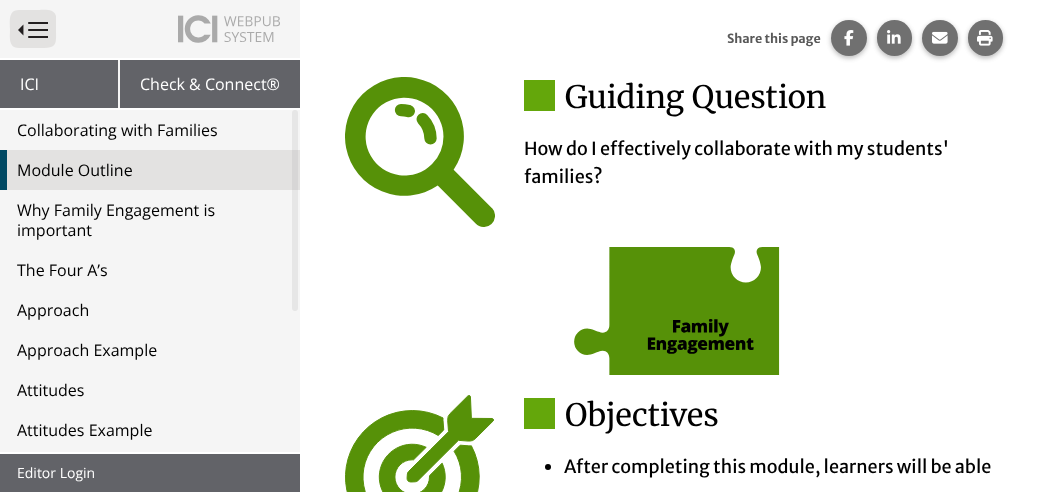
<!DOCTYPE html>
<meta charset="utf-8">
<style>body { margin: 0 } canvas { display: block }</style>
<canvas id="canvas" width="1038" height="492"></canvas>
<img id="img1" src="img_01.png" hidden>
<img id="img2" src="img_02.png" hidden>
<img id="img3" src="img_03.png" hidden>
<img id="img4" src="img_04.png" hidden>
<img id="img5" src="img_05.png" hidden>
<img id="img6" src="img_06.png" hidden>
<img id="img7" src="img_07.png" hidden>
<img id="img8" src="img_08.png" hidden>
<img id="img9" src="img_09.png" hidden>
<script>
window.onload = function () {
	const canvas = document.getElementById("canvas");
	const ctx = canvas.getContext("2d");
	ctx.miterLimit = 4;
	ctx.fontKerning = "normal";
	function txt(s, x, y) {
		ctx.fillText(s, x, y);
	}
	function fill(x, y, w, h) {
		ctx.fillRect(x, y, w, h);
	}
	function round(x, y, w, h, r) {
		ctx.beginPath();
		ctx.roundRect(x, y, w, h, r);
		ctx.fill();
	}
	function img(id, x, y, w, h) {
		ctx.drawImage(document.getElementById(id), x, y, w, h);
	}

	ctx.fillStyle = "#FFFFFF";
	fill(0, 0, 1038, 492);
	ctx.fillStyle = "#F5F5F5";
	fill(0, 0, 300, 452);
	ctx.fillStyle = "#E3E2E1";
	ctx.beginPath();
	ctx.moveTo(19, 10);
	ctx.lineTo(38, 10);
	ctx.bezierCurveTo(43, 10, 54, 8, 56, 16);
	ctx.lineTo(56, 29);
	ctx.bezierCurveTo(56, 43, 58, 48, 42, 48);
	ctx.lineTo(19, 48);
	ctx.bezierCurveTo(8, 48, 10, 37, 10, 29);
	ctx.bezierCurveTo(10, 21, 8, 10, 19, 10);
	ctx.closePath();
	ctx.fill();
	img("img1", 18, 22, 30, 16);
	img("img2", 178, 15, 102, 28);
	ctx.fillStyle = "#FFFFFF";
	fill(0, 58, 300, 2);
	fill(0, 108, 300, 2);
	ctx.fillStyle = "#626368";
	fill(0, 60, 118, 48);
	fill(120, 60, 180, 48);
	ctx.fillStyle = "#E3E2E1";
	fill(7, 150, 293, 40);
	ctx.fillStyle = "#004963";
	fill(0, 150, 7, 40);
	ctx.fillStyle = "rgba(170, 170, 170, 0.2)";
	round(292, 110, 6, 201, 3);
	ctx.fillStyle = "#626368";
	fill(0, 454, 300, 38);
	ctx.fillStyle = "rgba(0, 0, 0, 0.12)";
	ctx.filter = "blur(2.5px)";
	ctx.beginPath();
	ctx.roundRect(831, 22, 36, 36, 18);
	ctx.fill();
	ctx.filter = "none";
	ctx.fillStyle = "rgba(0, 0, 0, 0.16)";
	ctx.filter = "blur(2.5px)";
	ctx.beginPath();
	ctx.roundRect(831, 22, 36, 36, 18);
	ctx.fill();
	ctx.filter = "none";
	ctx.fillStyle = "#707070";
	ctx.beginPath();
	ctx.arc(849, 38, 18, 0, Math.PI * 2);
	ctx.fill();
	img("img3", 844, 30, 10, 16);
	ctx.fillStyle = "rgba(0, 0, 0, 0.12)";
	ctx.filter = "blur(2.5px)";
	ctx.beginPath();
	ctx.roundRect(877, 22, 35, 36, 17.5);
	ctx.fill();
	ctx.filter = "none";
	ctx.fillStyle = "rgba(0, 0, 0, 0.16)";
	ctx.filter = "blur(2.5px)";
	ctx.beginPath();
	ctx.roundRect(877, 22, 35, 36, 17.5);
	ctx.fill();
	ctx.filter = "none";
	ctx.fillStyle = "#707070";
	round(877, 20, 35, 36, 17.5);
	img("img4", 887, 30, 14, 14);
	ctx.fillStyle = "rgba(0, 0, 0, 0.12)";
	ctx.filter = "blur(2.5px)";
	ctx.beginPath();
	ctx.roundRect(922, 22, 36, 36, 18);
	ctx.fill();
	ctx.filter = "none";
	ctx.fillStyle = "rgba(0, 0, 0, 0.16)";
	ctx.filter = "blur(2.5px)";
	ctx.beginPath();
	ctx.roundRect(922, 22, 36, 36, 18);
	ctx.fill();
	ctx.filter = "none";
	ctx.fillStyle = "#707070";
	ctx.beginPath();
	ctx.arc(940, 38, 18, 0, Math.PI * 2);
	ctx.fill();
	img("img5", 932, 31, 16, 13);
	ctx.fillStyle = "rgba(0, 0, 0, 0.12)";
	ctx.filter = "blur(2.5px)";
	ctx.beginPath();
	ctx.roundRect(968, 22, 35, 36, 17.5);
	ctx.fill();
	ctx.filter = "none";
	ctx.fillStyle = "rgba(0, 0, 0, 0.16)";
	ctx.filter = "blur(2.5px)";
	ctx.beginPath();
	ctx.roundRect(968, 22, 35, 36, 17.5);
	ctx.fill();
	ctx.filter = "none";
	ctx.fillStyle = "#707070";
	round(968, 20, 35, 36, 17.5);
	img("img6", 977, 30, 16, 16);
	img("img7", 345, 77, 150, 150);
	ctx.fillStyle = "#64A70B";
	fill(524, 80, 31, 31);
	img("img8", 574, 247, 206, 128);
	img("img9", 345, 395, 149, 97);
	fill(524, 398, 31, 31);
	ctx.fillStyle = "#000000";
	ctx.beginPath();
	ctx.arc(548, 467, 3, 0, Math.PI * 2);
	ctx.fill();
	ctx.font = "16px Open Sans";
	ctx.fillStyle = "#FFFFFF";
	txt("ICI", 20, 90);
	txt("Check & Connect®", 140, 90);
	ctx.fillStyle = "#000000";
	txt("Collaborating with Families", 17, 136);
	txt("Module Outline", 17, 176);
	txt("Why Family Engagement is", 17, 216);
	txt("important", 17, 236);
	txt("The Four A’s", 17, 276);
	txt("Approach", 17, 316);
	txt("Approach Example", 17, 356);
	txt("Attitudes", 17, 396);
	txt("Attitudes Example", 17, 436);
	ctx.font = "14px Open Sans";
	ctx.fillStyle = "#FFFFFF";
	txt("Editor Login", 17, 478);
	ctx.font = "bold 12.5px Merriweather Sans";
	ctx.fillStyle = "#595959";
	txt("Share this page", 727, 43);
	ctx.font = "31px Merriweather";
	ctx.fillStyle = "#000000";
	txt("Guiding Question", 565, 108);
	ctx.font = "18px Merriweather Sans";
	txt("How do I effectively collaborate with my students'", 524, 155);
	txt("families?", 524, 183);
	ctx.font = "31px Merriweather";
	txt("Objectives", 565, 426);
	ctx.font = "18px Merriweather Sans";
	txt("After completing this module, learners will be able", 564, 473);
};
</script>
